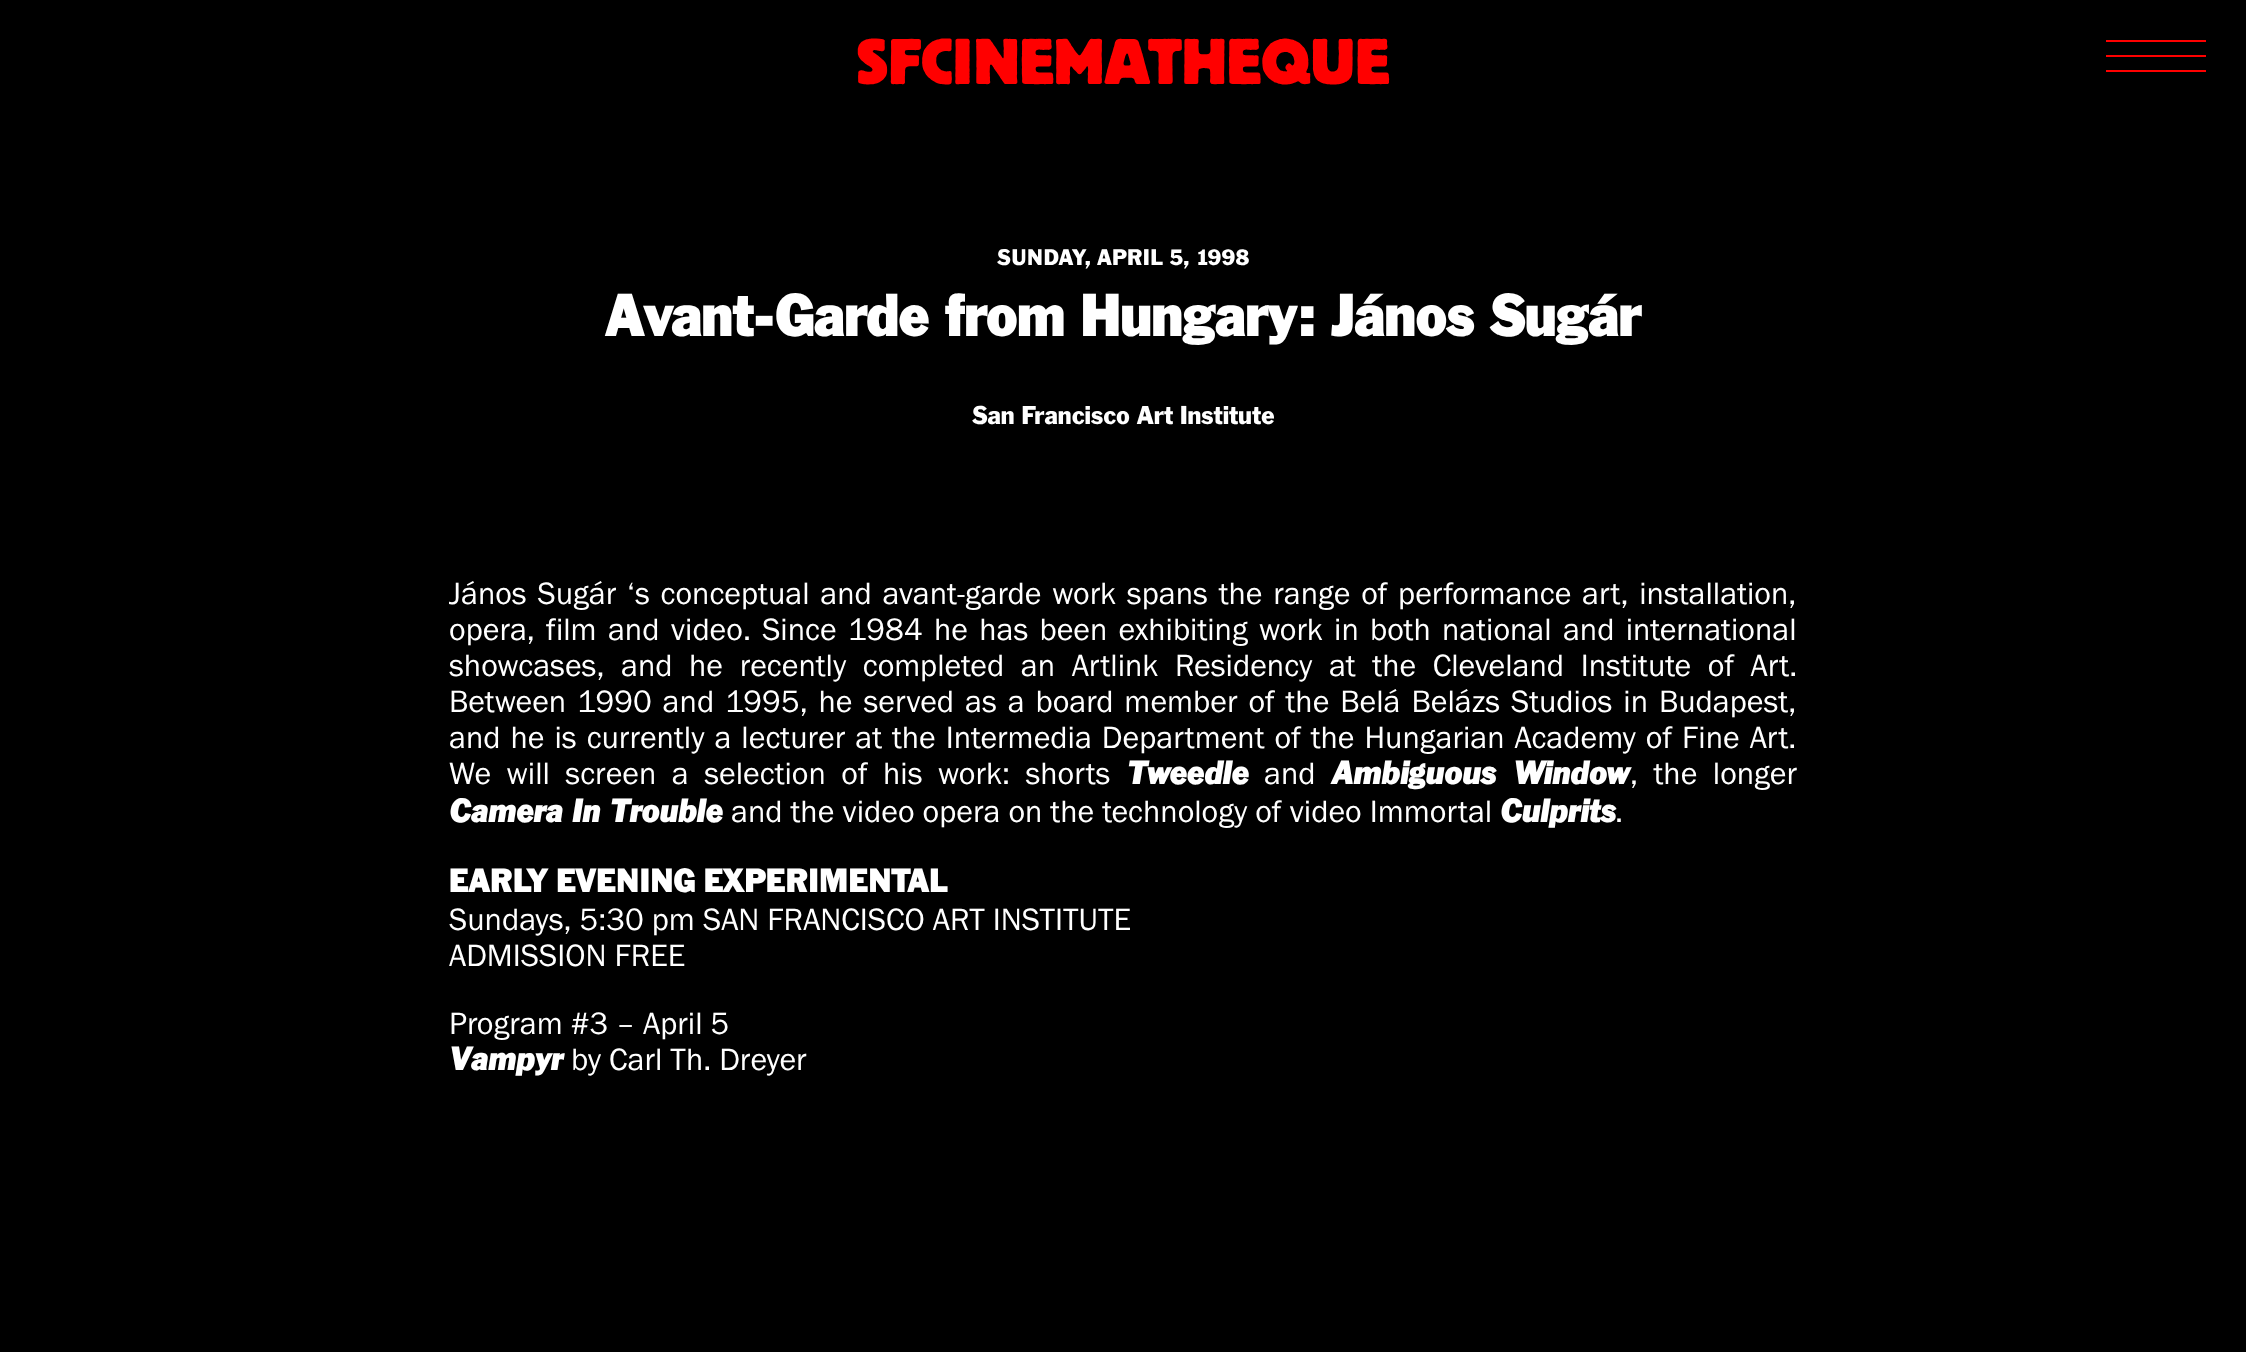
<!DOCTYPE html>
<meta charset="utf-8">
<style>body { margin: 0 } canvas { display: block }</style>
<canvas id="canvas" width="2246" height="1352"></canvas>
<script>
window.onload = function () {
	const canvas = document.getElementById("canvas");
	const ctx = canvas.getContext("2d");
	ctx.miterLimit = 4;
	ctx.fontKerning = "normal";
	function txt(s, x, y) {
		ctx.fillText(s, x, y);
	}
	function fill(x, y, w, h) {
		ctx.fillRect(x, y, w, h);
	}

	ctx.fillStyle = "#000000";
	fill(0, 0, 2246, 1352);
	ctx.fillStyle = "#FF0000";
	fill(2106, 40, 100, 2);
	fill(2106, 55, 100, 2);
	fill(2106, 70, 100, 2);
	ctx.font = "bold 64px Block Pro";
	txt("SFCINEMATHEQUE", 856, 84);
	ctx.font = "22.4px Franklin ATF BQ";
	ctx.fillStyle = "#FFFFFF";
	txt("SUNDAY, APRIL 5, 1998", 997, 265);
	ctx.font = "bold 57.6px Franklin ATF BQ";
	txt("Avant-Garde from Hungary: János Sugár", 605, 336);
	ctx.font = "25.6px Franklin ATF BQ";
	txt("San Francisco Art Institute", 972, 424);
	ctx.wordSpacing = "2.75px";
	ctx.font = "32px Franklin Gothic";
	txt("János Sugár ‘s conceptual and avant-garde work spans the range of performance art, installation,", 449, 604);
	ctx.wordSpacing = "3.25px";
	txt("opera, film and video. Since 1984 he has been exhibiting work in both national and international", 449, 640);
	ctx.wordSpacing = "8.6px";
	txt("showcases, and he recently completed an Artlink Residency at the Cleveland Institute of Art.", 449, 676);
	ctx.wordSpacing = "2.9px";
	txt("Between 1990 and 1995, he served as a board member of the Belá Belázs Studios in Budapest,", 449, 712);
	ctx.wordSpacing = "2px";
	txt("and he is currently a lecturer at the Intermedia Department of the Hungarian Academy of Fine Art.", 449, 748);
	ctx.wordSpacing = "7.5px";
	txt("We will screen a selection of his work: shorts", 449, 784);
	ctx.wordSpacing = "0px";
	ctx.font = "italic bold 32px Franklin ATF BQ";
	txt("Tweedle", 1127, 784);
	ctx.font = "32px Franklin Gothic";
	txt("and", 1264, 784);
	ctx.wordSpacing = "7.5px";
	ctx.font = "italic bold 32px Franklin ATF BQ";
	txt("Ambiguous Window", 1331, 784);
	ctx.font = "32px Franklin Gothic";
	txt(", the longer", 1630, 784);
	ctx.wordSpacing = "0px";
	ctx.font = "italic bold 32px Franklin ATF BQ";
	txt("Camera In Trouble", 449, 822);
	ctx.font = "32px Franklin Gothic";
	txt("and the video opera on the technology of video Immortal", 731, 822);
	ctx.font = "italic bold 32px Franklin ATF BQ";
	txt("Culprits", 1500, 822);
	ctx.font = "32px Franklin Gothic";
	txt(".", 1615, 822);
	ctx.font = "bold 32px Franklin ATF BQ";
	txt("EARLY EVENING EXPERIMENTAL", 449, 892);
	ctx.font = "32px Franklin Gothic";
	txt("Sundays, 5:30 pm SAN FRANCISCO ART INSTITUTE", 449, 930);
	txt("ADMISSION FREE", 449, 966);
	txt("Program #3 – April 5", 449, 1034);
	ctx.font = "italic bold 32px Franklin ATF BQ";
	txt("Vampyr", 449, 1070);
	ctx.font = "32px Franklin Gothic";
	txt("by Carl Th. Dreyer", 571, 1070);
};
</script>
